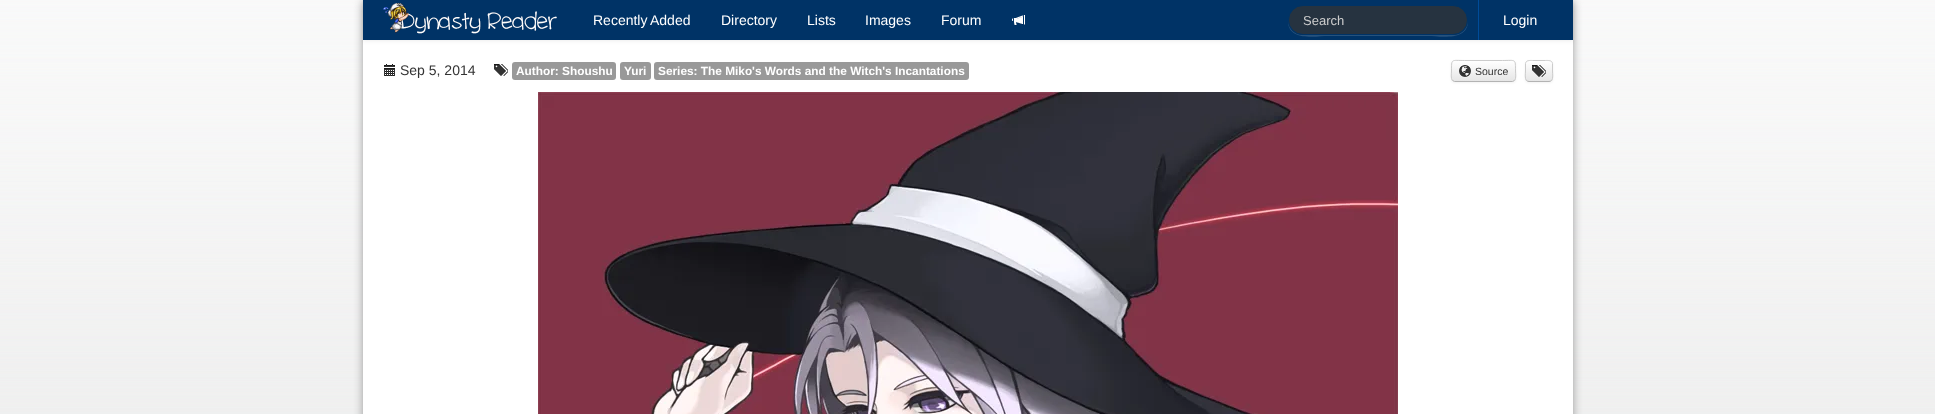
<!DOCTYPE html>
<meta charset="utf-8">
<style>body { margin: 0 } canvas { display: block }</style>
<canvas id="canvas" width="1935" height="414"></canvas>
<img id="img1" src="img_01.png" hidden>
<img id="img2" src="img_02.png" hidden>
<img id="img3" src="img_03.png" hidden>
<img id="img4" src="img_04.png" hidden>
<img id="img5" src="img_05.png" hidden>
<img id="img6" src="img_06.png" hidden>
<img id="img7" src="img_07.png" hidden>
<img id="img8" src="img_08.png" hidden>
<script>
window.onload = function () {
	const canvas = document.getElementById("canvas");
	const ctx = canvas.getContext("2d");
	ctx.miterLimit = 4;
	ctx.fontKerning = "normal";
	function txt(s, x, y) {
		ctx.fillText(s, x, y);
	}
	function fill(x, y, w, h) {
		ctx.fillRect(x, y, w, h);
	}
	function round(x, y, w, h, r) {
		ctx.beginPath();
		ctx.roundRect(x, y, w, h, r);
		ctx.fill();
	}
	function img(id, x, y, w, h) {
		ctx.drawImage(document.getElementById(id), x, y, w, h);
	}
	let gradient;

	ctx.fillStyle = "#FFFFFF";
	fill(0, 0, 1935, 414);
	img("img1", 0, 0, 1935, 414);
	ctx.fillStyle = "#999999";
	ctx.filter = "blur(5px)";
	ctx.beginPath();
	ctx.roundRect(363, 0, 1210, 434, 5);
	ctx.fill();
	ctx.filter = "none";
	ctx.fillStyle = "#FFFFFF";
	fill(363, 40, 1210, 374);
	ctx.fillStyle = "rgba(0, 0, 0, 0.07)";
	ctx.filter = "blur(2px)";
	ctx.beginPath();
	ctx.rect(363, 1, 1210, 40);
	ctx.fill();
	ctx.filter = "none";
	ctx.fillStyle = "#003366";
	fill(363, 0, 1210, 40);
	img("img2", 383, 3, 174, 31);
	img("img3", 1012, 15, 13, 11);
	ctx.fillStyle = "#26527D";
	ctx.beginPath();
	ctx.moveTo(1288, 20);
	ctx.bezierCurveTo(1287, 42, 1317, 36, 1328, 36);
	ctx.lineTo(1428, 36);
	ctx.bezierCurveTo(1439, 36, 1469, 42, 1468, 20);
	ctx.bezierCurveTo(1468, 29, 1461, 35, 1453, 35);
	ctx.lineTo(1303, 35);
	ctx.bezierCurveTo(1295, 35, 1288, 29, 1288, 20);
	ctx.closePath();
	ctx.fill();
	ctx.fillStyle = "#263340";
	ctx.beginPath();
	ctx.roundRect(1288.5, 5.5, 179, 29, 14.5);
	ctx.fill();
	ctx.strokeStyle = "#003366";
	ctx.stroke();
	ctx.fillStyle = "#004C99";
	fill(1478, 0, 1, 40);
	img("img4", 384, 64, 11, 12);
	img("img5", 494, 64, 14, 12);
	ctx.fillStyle = "#999999";
	round(512, 62, 104, 18, 3);
	round(620, 62, 31, 18, 3);
	round(654, 62, 315, 18, 3);
	ctx.fillStyle = "rgba(0, 0, 0, 0.05)";
	ctx.filter = "blur(1px)";
	ctx.beginPath();
	ctx.roundRect(1451, 61, 65, 22, 4);
	ctx.fill();
	ctx.filter = "none";
	ctx.save();
	ctx.beginPath();
	ctx.roundRect(1451, 60, 65, 22, 4);
	ctx.clip();
	gradient = ctx.createLinearGradient(1484, 61, 1484, 81);
	gradient.addColorStop(0, "#FFFFFF");
	gradient.addColorStop(1, "#E6E6E6");
	ctx.fillStyle = gradient;
	fill(1451, 61, 65, 20);
	ctx.restore();
	ctx.beginPath();
	ctx.moveTo(1514.5, 80.5);
	ctx.lineTo(1512.5, 81.5);
	ctx.lineTo(1454.5, 81.5);
	ctx.lineTo(1452.5, 80.5);
	ctx.strokeStyle = "#B3B3B3";
	ctx.stroke();
	ctx.beginPath();
	ctx.moveTo(1452.5, 80.5);
	ctx.bezierCurveTo(1450.5, 78.5, 1451.5, 73.5, 1451.5, 71);
	ctx.bezierCurveTo(1451.5, 58.5, 1451, 60.5, 1464.5, 60.5);
	ctx.lineTo(1502.5, 60.5);
	ctx.bezierCurveTo(1516, 60.5, 1515.5, 58.5, 1515.5, 71);
	ctx.bezierCurveTo(1515.5, 73.5, 1516.5, 78.5, 1514.5, 80.5);
	ctx.strokeStyle = "#CCCCCC";
	ctx.stroke();
	img("img6", 1459, 65, 12, 13);
	ctx.filter = "blur(1px)";
	ctx.beginPath();
	ctx.roundRect(1525, 61, 28, 22, 4);
	ctx.fill();
	ctx.filter = "none";
	ctx.save();
	ctx.beginPath();
	ctx.roundRect(1525, 60, 28, 22, 4);
	ctx.clip();
	gradient = ctx.createLinearGradient(1539, 61, 1539, 81);
	gradient.addColorStop(0, "#FFFFFF");
	gradient.addColorStop(1, "#E6E6E6");
	ctx.fillStyle = gradient;
	fill(1525, 61, 28, 20);
	ctx.restore();
	ctx.beginPath();
	ctx.moveTo(1551.5, 80.5);
	ctx.bezierCurveTo(1551, 81, 1550, 81.5, 1549, 81.5);
	ctx.lineTo(1529, 81.5);
	ctx.bezierCurveTo(1528, 81.5, 1527, 81, 1526.5, 80.5);
	ctx.strokeStyle = "#B3B3B3";
	ctx.stroke();
	ctx.beginPath();
	ctx.moveTo(1526.5, 80.5);
	ctx.bezierCurveTo(1524.5, 78.5, 1525.5, 73.5, 1525.5, 71);
	ctx.lineTo(1525.5, 63.5);
	ctx.bezierCurveTo(1526, 60, 1530, 60.5, 1532.5, 60.5);
	ctx.lineTo(1545.5, 60.5);
	ctx.bezierCurveTo(1548, 60.5, 1552, 60, 1552.5, 63.5);
	ctx.lineTo(1552.5, 71);
	ctx.bezierCurveTo(1552.5, 73.5, 1553.5, 78.5, 1551.5, 80.5);
	ctx.strokeStyle = "#CCCCCC";
	ctx.stroke();
	img("img7", 1532, 65, 14, 12);
	img("img8", 538, 92, 860, 322);
	ctx.font = "14px Liberation Sans";
	ctx.fillStyle = "#FFFFFF";
	txt("Recently", 593, 25);
	txt("Added", 650, 25);
	txt("Directory", 721, 25);
	txt("Lists", 807, 25);
	txt("Images", 865, 25);
	txt("Forum", 941, 25);
	ctx.font = "13px Liberation Sans";
	ctx.fillStyle = "#CCCCCC";
	txt("Search", 1303, 25);
	ctx.font = "14px Liberation Sans";
	ctx.fillStyle = "#FFFFFF";
	txt("Login", 1503, 25);
	ctx.fillStyle = "#333333";
	txt("Sep 5, 2014", 400, 75);
	ctx.font = "bold 11.85px Liberation Sans";
	ctx.fillStyle = "#FFFFFF";
	txt("Author: Shoushu", 516, 75);
	txt("Yuri", 624, 75);
	txt("Series: The Miko's Words and the Witch's Incantations", 658, 75);
	ctx.font = "10.5px Liberation Sans";
	ctx.fillStyle = "#333333";
	txt("Source", 1475, 75);
};
</script>
